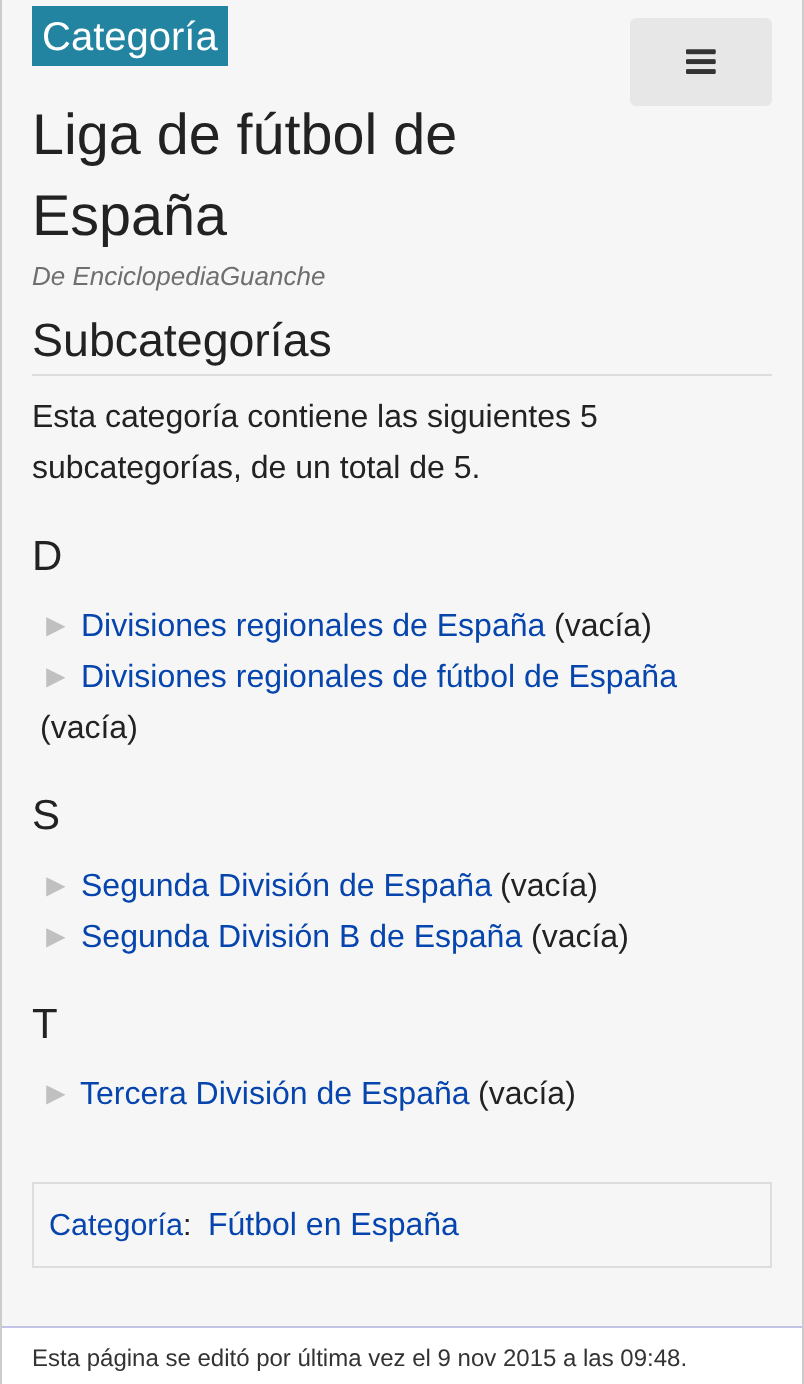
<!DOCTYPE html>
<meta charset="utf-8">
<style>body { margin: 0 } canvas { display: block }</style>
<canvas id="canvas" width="804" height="1384"></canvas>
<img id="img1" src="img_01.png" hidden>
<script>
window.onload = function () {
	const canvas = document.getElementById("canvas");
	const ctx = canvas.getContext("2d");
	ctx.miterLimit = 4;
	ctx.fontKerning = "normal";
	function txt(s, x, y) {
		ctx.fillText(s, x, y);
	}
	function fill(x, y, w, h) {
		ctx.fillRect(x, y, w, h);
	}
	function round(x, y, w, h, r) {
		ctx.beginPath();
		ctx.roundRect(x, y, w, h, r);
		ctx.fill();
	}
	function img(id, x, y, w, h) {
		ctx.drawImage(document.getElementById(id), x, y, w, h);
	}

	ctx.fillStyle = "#F6F6F6";
	fill(0, 0, 804, 1384);
	ctx.fillStyle = "#CCCCCC";
	fill(802, 0, 2, 1384);
	fill(0, 0, 2, 1384);
	ctx.fillStyle = "#2284A1";
	fill(32, 6, 196, 60);
	ctx.fillStyle = "#E7E7E7";
	round(630, 18, 142, 88, 6);
	img("img1", 686, 49, 30, 25);
	ctx.fillStyle = "#DDDDDD";
	fill(32, 374, 740, 2);
	ctx.strokeStyle = "#DDDDDD";
	ctx.lineWidth = 2;
	ctx.strokeRect(33, 1183, 738, 84);
	ctx.fillStyle = "#FFFFFF";
	fill(2, 1328, 800, 56);
	ctx.fillStyle = "#C3C3E5";
	fill(2, 1326, 800, 2);
	ctx.font = "40px Liberation Sans";
	ctx.fillStyle = "#FFFFFF";
	txt("Categoría", 42, 50);
	ctx.font = "57.5px Liberation Sans";
	ctx.fillStyle = "#222222";
	txt("Liga de fútbol de", 32, 154);
	txt("España", 32, 235);
	ctx.font = "italic 26px Liberation Sans";
	ctx.fillStyle = "#6F6F6F";
	txt("De EnciclopediaGuanche", 32, 285);
	ctx.font = "46.5px Liberation Sans";
	ctx.fillStyle = "#222222";
	txt("Subcategorías", 32, 356);
	ctx.font = "32px Liberation Sans";
	txt("Esta categoría contiene las siguientes 5", 32, 427);
	txt("subcategorías, de un total de 5.", 32, 478);
	ctx.font = "42px Liberation Sans";
	txt("D", 32, 570);
	ctx.font = "32px Liberation Sans";
	ctx.fillStyle = "#C0C0C0";
	txt("►", 40, 636);
	ctx.fillStyle = "#0645AD";
	txt("Divisiones regionales de España", 81, 636);
	ctx.fillStyle = "#222222";
	txt("(vacía)", 554, 636);
	ctx.fillStyle = "#C0C0C0";
	txt("►", 40, 687);
	ctx.fillStyle = "#0645AD";
	txt("Divisiones regionales de fútbol de España", 81, 687);
	ctx.fillStyle = "#222222";
	txt("(vacía)", 40, 738);
	ctx.font = "42px Liberation Sans";
	txt("S", 32, 829);
	ctx.font = "32px Liberation Sans";
	ctx.fillStyle = "#C0C0C0";
	txt("►", 40, 896);
	ctx.fillStyle = "#0645AD";
	txt("Segunda División de España", 81, 896);
	ctx.fillStyle = "#222222";
	txt("(vacía)", 500, 896);
	ctx.fillStyle = "#C0C0C0";
	txt("►", 40, 947);
	ctx.fillStyle = "#0645AD";
	txt("Segunda División B de España", 81, 947);
	ctx.fillStyle = "#222222";
	txt("(vacía)", 531, 947);
	ctx.font = "42px Liberation Sans";
	txt("T", 32, 1038);
	ctx.font = "32px Liberation Sans";
	ctx.fillStyle = "#C0C0C0";
	txt("►", 40, 1104);
	ctx.fillStyle = "#0645AD";
	txt("Tercera División de España", 80, 1104);
	ctx.fillStyle = "#222222";
	txt("(vacía)", 478, 1104);
	ctx.font = "30.5px Liberation Sans";
	ctx.fillStyle = "#0645AD";
	txt("Categoría", 49, 1235);
	ctx.fillStyle = "#222222";
	txt(":", 183, 1235);
	ctx.font = "32px Liberation Sans";
	ctx.fillStyle = "#0645AD";
	txt("Fútbol en España", 208, 1235);
	ctx.font = "24px Liberation Sans";
	ctx.fillStyle = "#333333";
	txt("Esta página se editó por última vez el 9 nov 2015 a las 09:48.", 32, 1366);
};
</script>
